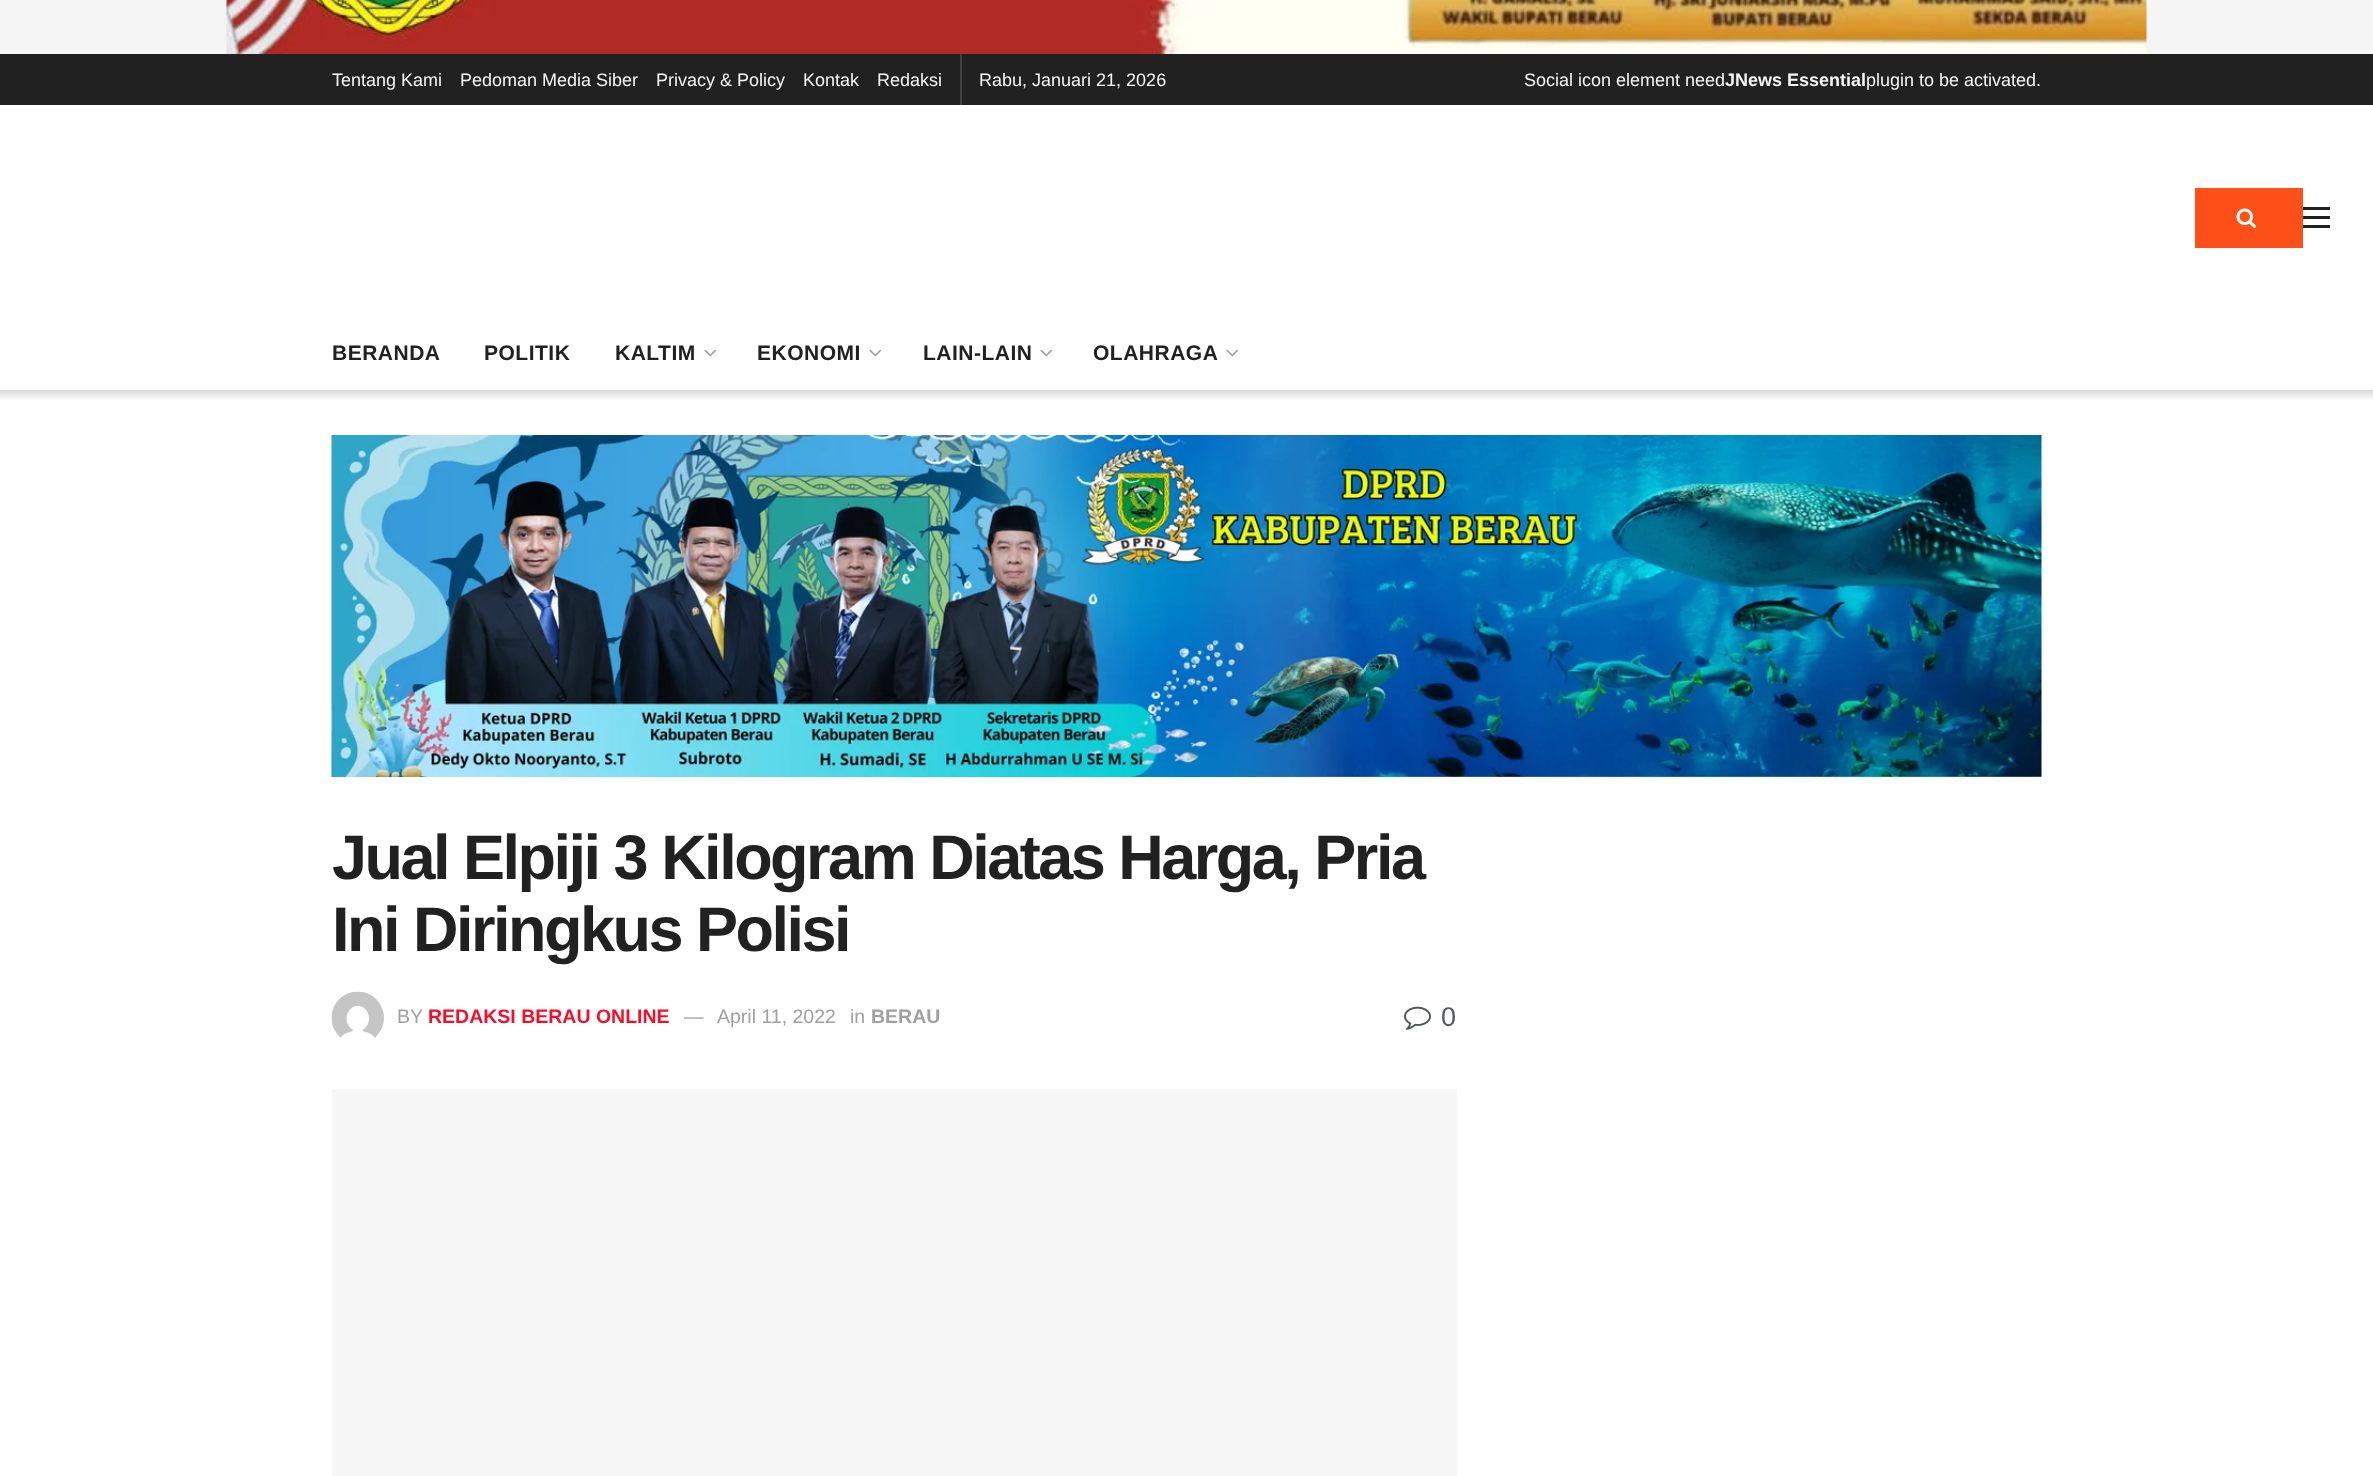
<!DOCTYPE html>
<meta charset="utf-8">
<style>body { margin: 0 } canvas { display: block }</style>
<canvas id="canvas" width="2373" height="1476"></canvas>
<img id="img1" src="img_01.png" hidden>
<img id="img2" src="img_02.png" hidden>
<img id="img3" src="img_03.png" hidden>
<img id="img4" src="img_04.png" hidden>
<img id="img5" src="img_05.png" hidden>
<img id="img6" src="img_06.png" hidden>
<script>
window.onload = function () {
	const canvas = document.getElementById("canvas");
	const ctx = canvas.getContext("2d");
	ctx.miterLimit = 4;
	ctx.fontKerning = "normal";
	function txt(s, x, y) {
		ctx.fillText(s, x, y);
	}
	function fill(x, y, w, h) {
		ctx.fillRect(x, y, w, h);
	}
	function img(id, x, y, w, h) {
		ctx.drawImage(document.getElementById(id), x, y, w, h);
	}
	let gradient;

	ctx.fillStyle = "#FFFFFF";
	fill(0, 0, 2373, 1476);
	ctx.fillStyle = "#F5F5F5";
	fill(0, 0, 2373, 54);
	img("img1", 226, 0, 1921, 54);
	ctx.fillStyle = "#212121";
	fill(0, 54, 2373, 51);
	ctx.fillStyle = "#424242";
	fill(960, 54, 2, 51);
	ctx.fillStyle = "#FD4F18";
	fill(2195, 188, 108, 60);
	img("img2", 2236, 208, 20, 20);
	ctx.fillStyle = "#212121";
	fill(2303, 207, 27, 3);
	fill(2303, 216, 27, 3);
	fill(2303, 225, 27, 3);
	img("img3", 704, 349, 12, 8);
	img("img3", 869, 349, 12, 8);
	img("img3", 1040, 349, 12, 8);
	img("img3", 1226, 349, 12, 8);
	gradient = ctx.createLinearGradient(1187, 390, 1187, 401);
	gradient.addColorStop(0, "#D9D9D9");
	gradient.addColorStop(1, "#FFFFFF");
	ctx.fillStyle = gradient;
	fill(0, 390, 2373, 10);
	img("img4", 331, 435, 1711, 342);
	img("img5", 331, 991, 53, 47);
	img("img6", 1404, 1006, 27, 24);
	ctx.fillStyle = "#F7F7F7";
	fill(332, 1089, 1125, 387);
	ctx.font = "18px Liberation Sans";
	ctx.fillStyle = "#F5F5F5";
	txt("Tentang Kami", 332, 86);
	txt("Pedoman Media Siber", 460, 86);
	txt("Privacy & Policy", 656, 86);
	txt("Kontak", 803, 86);
	txt("Redaksi", 877, 86);
	txt("Rabu, Januari 21, 2026", 979, 86);
	txt("Social icon element need", 1524, 86);
	ctx.font = "bold 18px Liberation Sans";
	txt("JNews Essential", 1725, 86);
	ctx.font = "18px Liberation Sans";
	txt("plugin to be activated.", 1866, 86);
	ctx.letterSpacing = "0.5px";
	ctx.font = "bold 21px Liberation Sans";
	ctx.fillStyle = "#212121";
	txt("BERANDA", 332, 360);
	txt("POLITIK", 484, 360);
	txt("KALTIM", 615, 360);
	txt("EKONOMI", 757, 360);
	txt("LAIN-LAIN", 923, 360);
	txt("OLAHRAGA", 1093, 360);
	ctx.letterSpacing = "-2.5px";
	ctx.font = "bold 63px Liberation Sans";
	txt("Jual Elpiji 3 Kilogram Diatas Harga, Pria", 332, 879);
	txt("Ini Diringkus Polisi", 332, 951);
	ctx.letterSpacing = "0px";
	ctx.font = "19.5px Liberation Sans";
	ctx.fillStyle = "#A0A0A0";
	txt("BY", 397, 1023);
	ctx.font = "bold 19.5px Liberation Sans";
	ctx.fillStyle = "#F70D28";
	txt("REDAKSI BERAU ONLINE", 428, 1023);
	ctx.font = "19.5px Liberation Sans";
	ctx.fillStyle = "#A0A0A0";
	txt("—", 684, 1023);
	txt("April 11, 2022", 717, 1023);
	txt("in", 850, 1023);
	ctx.font = "bold 19.5px Liberation Sans";
	txt("BERAU", 871, 1023);
	ctx.font = "27px Liberation Sans";
	ctx.fillStyle = "#53585C";
	txt("0", 1441, 1026);
};
</script>
